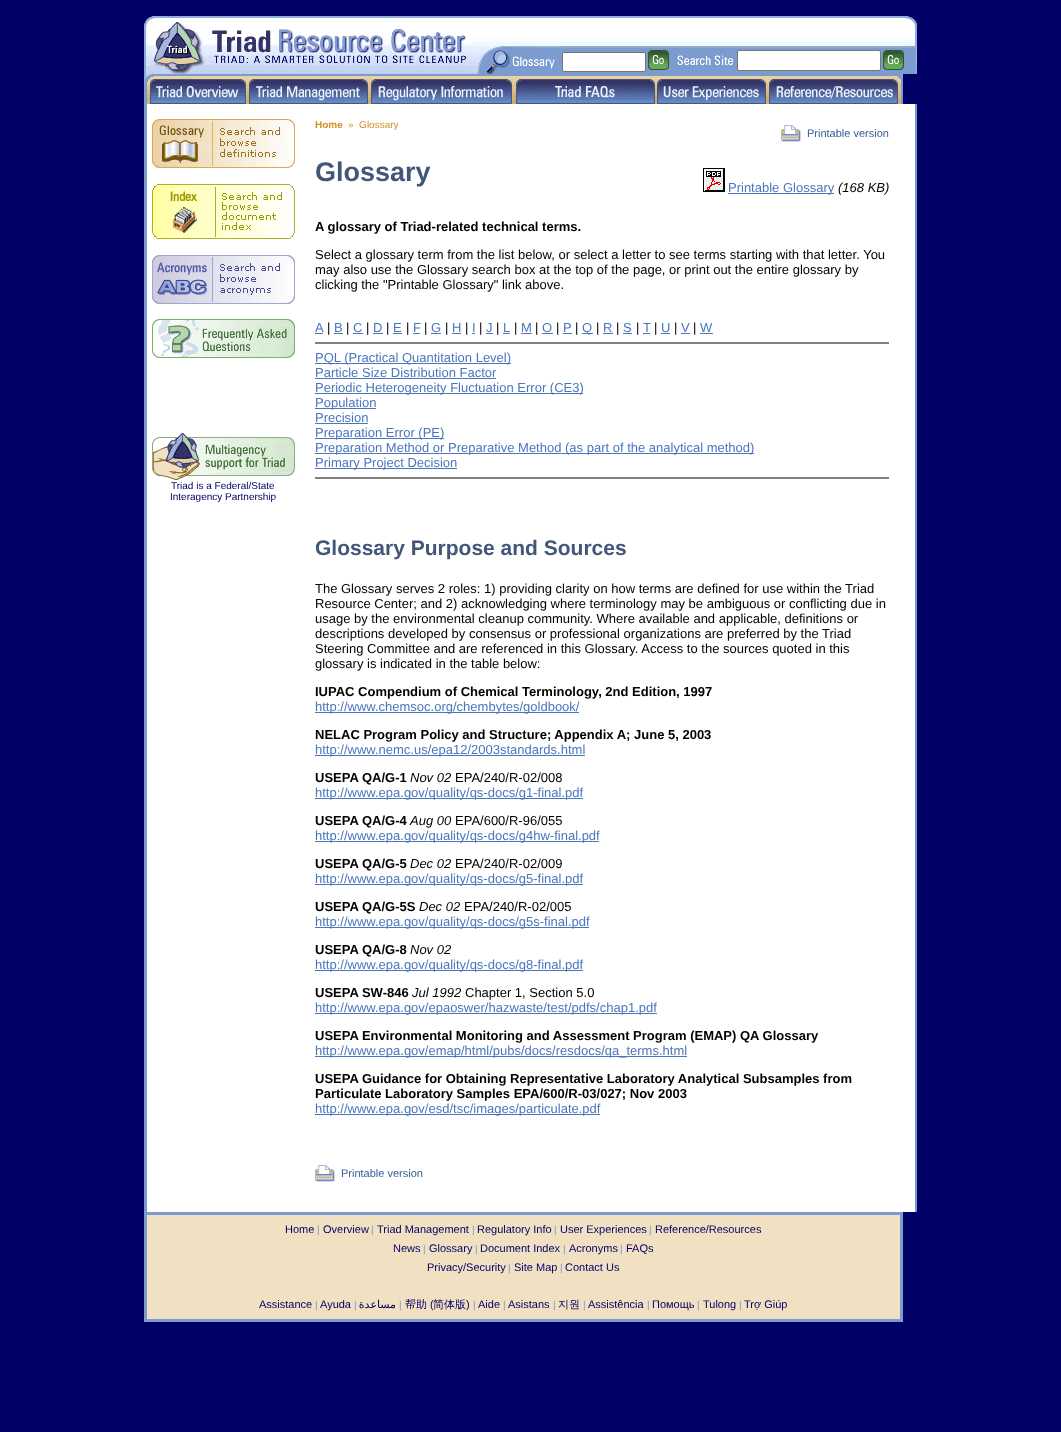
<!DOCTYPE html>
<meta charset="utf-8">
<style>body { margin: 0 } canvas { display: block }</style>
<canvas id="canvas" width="1061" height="1432"></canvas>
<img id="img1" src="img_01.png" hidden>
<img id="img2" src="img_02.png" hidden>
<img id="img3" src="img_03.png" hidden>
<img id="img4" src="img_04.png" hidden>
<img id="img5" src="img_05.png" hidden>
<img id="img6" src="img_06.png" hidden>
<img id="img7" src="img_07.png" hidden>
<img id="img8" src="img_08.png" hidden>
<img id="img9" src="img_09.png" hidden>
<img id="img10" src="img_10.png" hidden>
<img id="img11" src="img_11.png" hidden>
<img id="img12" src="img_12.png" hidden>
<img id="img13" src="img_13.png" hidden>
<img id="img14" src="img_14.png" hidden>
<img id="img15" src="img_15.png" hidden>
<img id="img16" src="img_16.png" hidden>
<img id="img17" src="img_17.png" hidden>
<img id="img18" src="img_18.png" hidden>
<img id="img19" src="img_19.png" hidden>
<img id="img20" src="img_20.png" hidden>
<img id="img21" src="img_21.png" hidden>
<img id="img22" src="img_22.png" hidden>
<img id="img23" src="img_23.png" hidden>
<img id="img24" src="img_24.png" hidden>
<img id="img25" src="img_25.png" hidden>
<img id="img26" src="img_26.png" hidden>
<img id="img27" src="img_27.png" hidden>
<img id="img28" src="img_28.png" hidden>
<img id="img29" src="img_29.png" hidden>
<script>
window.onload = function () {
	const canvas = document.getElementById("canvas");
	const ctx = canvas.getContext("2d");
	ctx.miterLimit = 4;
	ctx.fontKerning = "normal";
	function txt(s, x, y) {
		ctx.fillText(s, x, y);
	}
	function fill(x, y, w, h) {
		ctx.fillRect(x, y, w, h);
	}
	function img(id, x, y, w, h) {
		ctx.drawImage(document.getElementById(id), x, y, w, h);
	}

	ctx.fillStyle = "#000066";
	fill(0, 0, 1061, 1432);
	img("img1", 144, 16, 330, 30);
	img("img2", 474, 16, 3, 30);
	img("img3", 477, 16, 85, 30);
	img("img4", 562, 16, 86, 30);
	img("img5", 648, 16, 29, 30);
	img("img6", 677, 16, 60, 30);
	img("img7", 737, 16, 146, 30);
	img("img8", 883, 16, 21, 30);
	img("img9", 904, 16, 13, 30);
	img("img10", 144, 46, 330, 28);
	img("img11", 474, 46, 3, 28);
	img("img12", 477, 46, 85, 28);
	img("img13", 562, 46, 86, 28);
	ctx.fillStyle = "#FFFFFF";
	ctx.beginPath();
	ctx.roundRect(562.5, 52.5, 83, 19, 1.5);
	ctx.fill();
	ctx.strokeStyle = "#767676";
	ctx.stroke();
	ctx.fillStyle = "#7C9BCE";
	fill(648, 48, 261, 26);
	ctx.fillStyle = "#91A8D3";
	fill(648, 46, 269, 2);
	img("img14", 648, 50, 21, 20);
	img("img15", 677, 55, 56, 10);
	ctx.fillStyle = "#FFFFFF";
	ctx.beginPath();
	ctx.roundRect(737.5, 50.5, 143, 20, 1.5);
	ctx.fill();
	ctx.stroke();
	img("img14", 883, 50, 21, 20);
	img("img16", 909, 47, 8, 27);
	img("img17", 144, 74, 103, 30);
	img("img18", 247, 74, 122, 30);
	img("img19", 369, 74, 145, 30);
	img("img20", 514, 74, 142, 30);
	img("img21", 656, 74, 112, 30);
	img("img22", 768, 74, 135, 30);
	fill(147, 104, 768, 1108);
	ctx.fillStyle = "#7C9ACE";
	fill(144, 104, 3, 1108);
	ctx.fillStyle = "#7B99CE";
	fill(915, 104, 2, 1108);
	img("img23", 152, 119, 143, 49);
	img("img24", 152, 184, 143, 55);
	img("img25", 152, 255, 143, 49);
	img("img26", 152, 319, 143, 39);
	img("img27", 152, 433, 143, 47);
	img("img28", 781, 125, 20, 17);
	img("img29", 703, 168, 22, 24);
	ctx.fillStyle = "#4B76BC";
	fill(728, 193, 106, 1);
	fill(315, 333, 8, 1);
	fill(334, 333, 9, 1);
	fill(353, 333, 10, 1);
	fill(373, 333, 10, 1);
	fill(393, 333, 9, 1);
	fill(413, 333, 7, 1);
	fill(431, 333, 10, 1);
	fill(452, 333, 9, 1);
	fill(472, 333, 3, 1);
	fill(486, 333, 7, 1);
	fill(503, 333, 7, 1);
	fill(521, 333, 11, 1);
	fill(542, 333, 11, 1);
	fill(563, 333, 9, 1);
	fill(582, 333, 11, 1);
	fill(603, 333, 10, 1);
	fill(623, 333, 9, 1);
	fill(643, 333, 7, 1);
	fill(661, 333, 9, 1);
	fill(681, 333, 9, 1);
	fill(700, 333, 13, 1);
	ctx.fillStyle = "#808080";
	fill(315, 342, 574, 2);
	ctx.fillStyle = "#4B76BC";
	fill(315, 363, 196, 1);
	fill(315, 378, 181, 1);
	fill(315, 393, 268, 1);
	fill(315, 408, 61, 1);
	fill(315, 423, 53, 1);
	fill(315, 438, 129, 1);
	fill(315, 453, 439, 1);
	fill(315, 468, 142, 1);
	ctx.fillStyle = "#808080";
	fill(315, 477, 574, 2);
	ctx.fillStyle = "#4B76BC";
	fill(315, 712, 264, 1);
	fill(315, 755, 270, 1);
	fill(315, 798, 268, 1);
	fill(315, 841, 284, 1);
	fill(315, 884, 268, 1);
	fill(315, 927, 274, 1);
	fill(315, 970, 268, 1);
	fill(315, 1013, 342, 1);
	fill(315, 1056, 372, 1);
	fill(315, 1114, 285, 1);
	img("img28", 315, 1165, 20, 17);
	ctx.fillStyle = "#F1E0C2";
	fill(147, 1215, 753, 104);
	ctx.strokeStyle = "#7C9BCE";
	ctx.lineWidth = 2;
	ctx.strokeRect(145, 1213, 757, 108);
	ctx.lineWidth = 1;
	ctx.strokeRect(146.5, 1214.5, 754, 105);
	ctx.font = "10px Liberation Sans";
	ctx.fillStyle = "#000066";
	txt("Triad is a Federal/State", 171, 489);
	txt("Interagency Partnership", 170, 500);
	ctx.font = "bold 10px Liberation Sans";
	ctx.fillStyle = "#CD8F27";
	txt("Home", 315, 128);
	ctx.font = "10px Liberation Sans";
	txt("»  Glossary", 348, 128);
	ctx.font = "11px Liberation Sans";
	ctx.fillStyle = "#375B97";
	txt("Printable version", 807, 137);
	ctx.font = "bold 27px Liberation Sans";
	ctx.fillStyle = "#415678";
	txt("Glossary", 315, 181);
	ctx.font = "13px Liberation Sans";
	ctx.fillStyle = "#4B76BC";
	txt("Printable Glossary", 728, 192);
	ctx.font = "italic 13px Liberation Sans";
	ctx.fillStyle = "#000000";
	txt("(168 KB)", 838, 192);
	ctx.font = "bold 13px Liberation Sans";
	txt("A glossary of Triad-related technical terms.", 315, 231);
	ctx.font = "13px Liberation Sans";
	txt("Select a glossary term from the list below, or select a letter to see terms starting with that letter. You", 315, 259);
	txt("may also use the Glossary search box at the top of the page, or print out the entire glossary by", 315, 274);
	txt("clicking the \"Printable Glossary\" link above.", 315, 289);
	ctx.fillStyle = "#4B76BC";
	txt("A", 315, 332);
	ctx.fillStyle = "#000000";
	txt("|", 327, 332);
	ctx.fillStyle = "#4B76BC";
	txt("B", 334, 332);
	ctx.fillStyle = "#000000";
	txt("|", 346, 332);
	ctx.fillStyle = "#4B76BC";
	txt("C", 353, 332);
	ctx.fillStyle = "#000000";
	txt("|", 366, 332);
	ctx.fillStyle = "#4B76BC";
	txt("D", 373, 332);
	ctx.fillStyle = "#000000";
	txt("|", 386, 332);
	ctx.fillStyle = "#4B76BC";
	txt("E", 393, 332);
	ctx.fillStyle = "#000000";
	txt("|", 406, 332);
	ctx.fillStyle = "#4B76BC";
	txt("F", 413, 332);
	ctx.fillStyle = "#000000";
	txt("|", 424, 332);
	ctx.fillStyle = "#4B76BC";
	txt("G", 431, 332);
	ctx.fillStyle = "#000000";
	txt("|", 445, 332);
	ctx.fillStyle = "#4B76BC";
	txt("H", 452, 332);
	ctx.fillStyle = "#000000";
	txt("|", 465, 332);
	ctx.fillStyle = "#4B76BC";
	txt("I", 472, 332);
	ctx.fillStyle = "#000000";
	txt("|", 479, 332);
	ctx.fillStyle = "#4B76BC";
	txt("J", 486, 332);
	ctx.fillStyle = "#000000";
	txt("|", 496, 332);
	ctx.fillStyle = "#4B76BC";
	txt("L", 503, 332);
	ctx.fillStyle = "#000000";
	txt("|", 514, 332);
	ctx.fillStyle = "#4B76BC";
	txt("M", 521, 332);
	ctx.fillStyle = "#000000";
	txt("|", 535, 332);
	ctx.fillStyle = "#4B76BC";
	txt("O", 542, 332);
	ctx.fillStyle = "#000000";
	txt("|", 556, 332);
	ctx.fillStyle = "#4B76BC";
	txt("P", 563, 332);
	ctx.fillStyle = "#000000";
	txt("|", 575, 332);
	ctx.fillStyle = "#4B76BC";
	txt("Q", 582, 332);
	ctx.fillStyle = "#000000";
	txt("|", 596, 332);
	ctx.fillStyle = "#4B76BC";
	txt("R", 603, 332);
	ctx.fillStyle = "#000000";
	txt("|", 616, 332);
	ctx.fillStyle = "#4B76BC";
	txt("S", 623, 332);
	ctx.fillStyle = "#000000";
	txt("|", 636, 332);
	ctx.fillStyle = "#4B76BC";
	txt("T", 643, 332);
	ctx.fillStyle = "#000000";
	txt("|", 654, 332);
	ctx.fillStyle = "#4B76BC";
	txt("U", 661, 332);
	ctx.fillStyle = "#000000";
	txt("|", 674, 332);
	ctx.fillStyle = "#4B76BC";
	txt("V", 681, 332);
	ctx.fillStyle = "#000000";
	txt("|", 693, 332);
	ctx.fillStyle = "#4B76BC";
	txt("W", 700, 332);
	txt("PQL (Practical Quantitation Level)", 315, 362);
	txt("Particle Size Distribution Factor", 315, 377);
	txt("Periodic Heterogeneity Fluctuation Error (CE3)", 315, 392);
	txt("Population", 315, 407);
	txt("Precision", 315, 422);
	txt("Preparation Error (PE)", 315, 437);
	txt("Preparation Method or Preparative Method (as part of the analytical method)", 315, 452);
	txt("Primary Project Decision", 315, 467);
	ctx.font = "bold 21px Liberation Sans";
	ctx.fillStyle = "#415678";
	txt("Glossary Purpose and Sources", 315, 555);
	ctx.font = "13px Liberation Sans";
	ctx.fillStyle = "#000000";
	txt("The Glossary serves 2 roles: 1) providing clarity on how terms are defined for use within the Triad", 315, 593);
	txt("Resource Center; and 2) acknowledging where terminology may be ambiguous or conflicting due in", 315, 608);
	txt("usage by the environmental cleanup community. Where available and applicable, definitions or", 315, 623);
	txt("descriptions developed by consensus or professional organizations are preferred by the Triad", 315, 638);
	txt("Steering Committee and are referenced in this Glossary. Access to the sources quoted in this", 315, 653);
	txt("glossary is indicated in the table below:", 315, 668);
	ctx.font = "bold 13px Liberation Sans";
	txt("IUPAC Compendium of Chemical Terminology, 2nd Edition, 1997", 315, 696);
	ctx.font = "13px Liberation Sans";
	ctx.fillStyle = "#4B76BC";
	txt("http://www.chemsoc.org/chembytes/goldbook/", 315, 711);
	ctx.font = "bold 13px Liberation Sans";
	ctx.fillStyle = "#000000";
	txt("NELAC Program Policy and Structure; Appendix A; June 5, 2003", 315, 739);
	ctx.font = "13px Liberation Sans";
	ctx.fillStyle = "#4B76BC";
	txt("http://www.nemc.us/epa12/2003standards.html", 315, 754);
	ctx.font = "bold 13px Liberation Sans";
	ctx.fillStyle = "#000000";
	txt("USEPA QA/G-1", 315, 782);
	ctx.font = "italic 13px Liberation Sans";
	txt("Nov 02", 410, 782);
	ctx.font = "13px Liberation Sans";
	txt("EPA/240/R-02/008", 455, 782);
	ctx.fillStyle = "#4B76BC";
	txt("http://www.epa.gov/quality/qs-docs/g1-final.pdf", 315, 797);
	ctx.font = "bold 13px Liberation Sans";
	ctx.fillStyle = "#000000";
	txt("USEPA QA/G-4", 315, 825);
	ctx.font = "italic 13px Liberation Sans";
	txt("Aug 00", 410, 825);
	ctx.font = "13px Liberation Sans";
	txt("EPA/600/R-96/055", 455, 825);
	ctx.fillStyle = "#4B76BC";
	txt("http://www.epa.gov/quality/qs-docs/g4hw-final.pdf", 315, 840);
	ctx.font = "bold 13px Liberation Sans";
	ctx.fillStyle = "#000000";
	txt("USEPA QA/G-5", 315, 868);
	ctx.font = "italic 13px Liberation Sans";
	txt("Dec 02", 410, 868);
	ctx.font = "13px Liberation Sans";
	txt("EPA/240/R-02/009", 455, 868);
	ctx.fillStyle = "#4B76BC";
	txt("http://www.epa.gov/quality/qs-docs/g5-final.pdf", 315, 883);
	ctx.font = "bold 13px Liberation Sans";
	ctx.fillStyle = "#000000";
	txt("USEPA QA/G-5S", 315, 911);
	ctx.font = "italic 13px Liberation Sans";
	txt("Dec 02", 419, 911);
	ctx.font = "13px Liberation Sans";
	txt("EPA/240/R-02/005", 464, 911);
	ctx.fillStyle = "#4B76BC";
	txt("http://www.epa.gov/quality/qs-docs/g5s-final.pdf", 315, 926);
	ctx.font = "bold 13px Liberation Sans";
	ctx.fillStyle = "#000000";
	txt("USEPA QA/G-8", 315, 954);
	ctx.font = "italic 13px Liberation Sans";
	txt("Nov 02", 410, 954);
	ctx.font = "13px Liberation Sans";
	ctx.fillStyle = "#4B76BC";
	txt("http://www.epa.gov/quality/qs-docs/g8-final.pdf", 315, 969);
	ctx.font = "bold 13px Liberation Sans";
	ctx.fillStyle = "#000000";
	txt("USEPA SW-846", 315, 997);
	ctx.font = "italic 13px Liberation Sans";
	txt("Jul 1992", 412, 997);
	ctx.font = "13px Liberation Sans";
	txt("Chapter 1, Section 5.0", 465, 997);
	ctx.fillStyle = "#4B76BC";
	txt("http://www.epa.gov/epaoswer/hazwaste/test/pdfs/chap1.pdf", 315, 1012);
	ctx.font = "bold 13px Liberation Sans";
	ctx.fillStyle = "#000000";
	txt("USEPA Environmental Monitoring and Assessment Program (EMAP) QA Glossary", 315, 1040);
	ctx.font = "13px Liberation Sans";
	ctx.fillStyle = "#4B76BC";
	txt("http://www.epa.gov/emap/html/pubs/docs/resdocs/qa_terms.html", 315, 1055);
	ctx.font = "bold 13px Liberation Sans";
	ctx.fillStyle = "#000000";
	txt("USEPA Guidance for Obtaining Representative Laboratory Analytical Subsamples from", 315, 1083);
	txt("Particulate Laboratory Samples EPA/600/R-03/027; Nov 2003", 315, 1098);
	ctx.font = "13px Liberation Sans";
	ctx.fillStyle = "#4B76BC";
	txt("http://www.epa.gov/esd/tsc/images/particulate.pdf", 315, 1113);
	ctx.font = "11px Liberation Sans";
	ctx.fillStyle = "#375B97";
	txt("Printable version", 341, 1177);
	ctx.fillStyle = "#000066";
	txt("Home", 285, 1233);
	ctx.font = "10px Liberation Sans";
	ctx.fillStyle = "#7B9ACE";
	txt("|", 317, 1233);
	ctx.font = "11px Liberation Sans";
	ctx.fillStyle = "#000066";
	txt("Overview", 323, 1233);
	ctx.font = "10px Liberation Sans";
	ctx.fillStyle = "#7B9ACE";
	txt("|", 371, 1233);
	ctx.font = "11px Liberation Sans";
	ctx.fillStyle = "#000066";
	txt("Triad Management", 377, 1233);
	ctx.font = "10px Liberation Sans";
	ctx.fillStyle = "#7B9ACE";
	txt("|", 472, 1233);
	ctx.font = "11px Liberation Sans";
	ctx.fillStyle = "#000066";
	txt("Regulatory Info", 477, 1233);
	ctx.font = "10px Liberation Sans";
	ctx.fillStyle = "#7B9ACE";
	txt("|", 554, 1233);
	ctx.font = "11px Liberation Sans";
	ctx.fillStyle = "#000066";
	txt("User Experiences", 560, 1233);
	ctx.font = "10px Liberation Sans";
	ctx.fillStyle = "#7B9ACE";
	txt("|", 649, 1233);
	ctx.font = "11px Liberation Sans";
	ctx.fillStyle = "#000066";
	txt("Reference/Resources", 655, 1233);
	txt("News", 393, 1252);
	ctx.font = "10px Liberation Sans";
	ctx.fillStyle = "#7B9ACE";
	txt("|", 423, 1252);
	ctx.font = "11px Liberation Sans";
	ctx.fillStyle = "#000066";
	txt("Glossary", 429, 1252);
	ctx.font = "10px Liberation Sans";
	ctx.fillStyle = "#7B9ACE";
	txt("|", 475, 1252);
	ctx.font = "11px Liberation Sans";
	ctx.fillStyle = "#000066";
	txt("Document Index", 480, 1252);
	ctx.font = "10px Liberation Sans";
	ctx.fillStyle = "#7B9ACE";
	txt("|", 563, 1252);
	ctx.font = "11px Liberation Sans";
	ctx.fillStyle = "#000066";
	txt("Acronyms", 569, 1252);
	ctx.font = "10px Liberation Sans";
	ctx.fillStyle = "#7B9ACE";
	txt("|", 620, 1252);
	ctx.font = "11px Liberation Sans";
	ctx.fillStyle = "#000066";
	txt("FAQs", 626, 1252);
	txt("Privacy/Security", 427, 1271);
	ctx.font = "10px Liberation Sans";
	ctx.fillStyle = "#7B9ACE";
	txt("|", 508, 1271);
	ctx.font = "11px Liberation Sans";
	ctx.fillStyle = "#000066";
	txt("Site Map", 514, 1271);
	ctx.font = "10px Liberation Sans";
	ctx.fillStyle = "#7B9ACE";
	txt("|", 560, 1271);
	ctx.font = "11px Liberation Sans";
	ctx.fillStyle = "#000066";
	txt("Contact Us", 565, 1271);
	txt("Assistance", 259, 1308);
	ctx.font = "10px Liberation Sans";
	ctx.fillStyle = "#7B9ACE";
	txt("|", 315, 1308);
	ctx.font = "11px Liberation Sans";
	ctx.fillStyle = "#000066";
	txt("Ayuda", 320, 1308);
	ctx.font = "10px Liberation Sans";
	ctx.fillStyle = "#7B9ACE";
	txt("|", 354, 1308);
	ctx.direction = "rtl";
	ctx.font = "11px DejaVu Sans";
	ctx.fillStyle = "#000066";
	txt("مساعدة", 396, 1308);
	ctx.direction = "ltr";
	ctx.font = "10px Liberation Sans";
	ctx.fillStyle = "#7B9ACE";
	txt("|", 399, 1308);
	ctx.font = "500 11px WenQuanYi Zen Hei";
	ctx.fillStyle = "#000066";
	txt("帮助", 405, 1308);
	ctx.font = "11px Liberation Sans";
	txt("(", 430, 1308);
	ctx.font = "500 11px WenQuanYi Zen Hei";
	txt("简体版", 433, 1308);
	ctx.font = "11px Liberation Sans";
	txt(")", 466, 1308);
	ctx.font = "10px Liberation Sans";
	ctx.fillStyle = "#7B9ACE";
	txt("|", 473, 1308);
	ctx.font = "11px Liberation Sans";
	ctx.fillStyle = "#000066";
	txt("Aide", 478, 1308);
	ctx.font = "10px Liberation Sans";
	ctx.fillStyle = "#7B9ACE";
	txt("|", 503, 1308);
	ctx.font = "11px Liberation Sans";
	ctx.fillStyle = "#000066";
	txt("Asistans", 508, 1308);
	ctx.font = "10px Liberation Sans";
	ctx.fillStyle = "#7B9ACE";
	txt("|", 553, 1308);
	ctx.font = "500 11px WenQuanYi Zen Hei";
	ctx.fillStyle = "#000066";
	txt("지원", 558, 1308);
	ctx.font = "10px Liberation Sans";
	ctx.fillStyle = "#7B9ACE";
	txt("|", 583, 1308);
	ctx.font = "11px Liberation Sans";
	ctx.fillStyle = "#000066";
	txt("Assistência", 588, 1308);
	ctx.font = "10px Liberation Sans";
	ctx.fillStyle = "#7B9ACE";
	txt("|", 647, 1308);
	ctx.font = "11px Liberation Sans";
	ctx.fillStyle = "#000066";
	txt("Помощь", 652, 1308);
	ctx.font = "10px Liberation Sans";
	ctx.fillStyle = "#7B9ACE";
	txt("|", 697, 1308);
	ctx.font = "11px Liberation Sans";
	ctx.fillStyle = "#000066";
	txt("Tulong", 703, 1308);
	ctx.font = "10px Liberation Sans";
	ctx.fillStyle = "#7B9ACE";
	txt("|", 739, 1308);
	ctx.font = "11px Liberation Sans";
	ctx.fillStyle = "#000066";
	txt("Trợ Giúp", 744, 1308);
};
</script>
